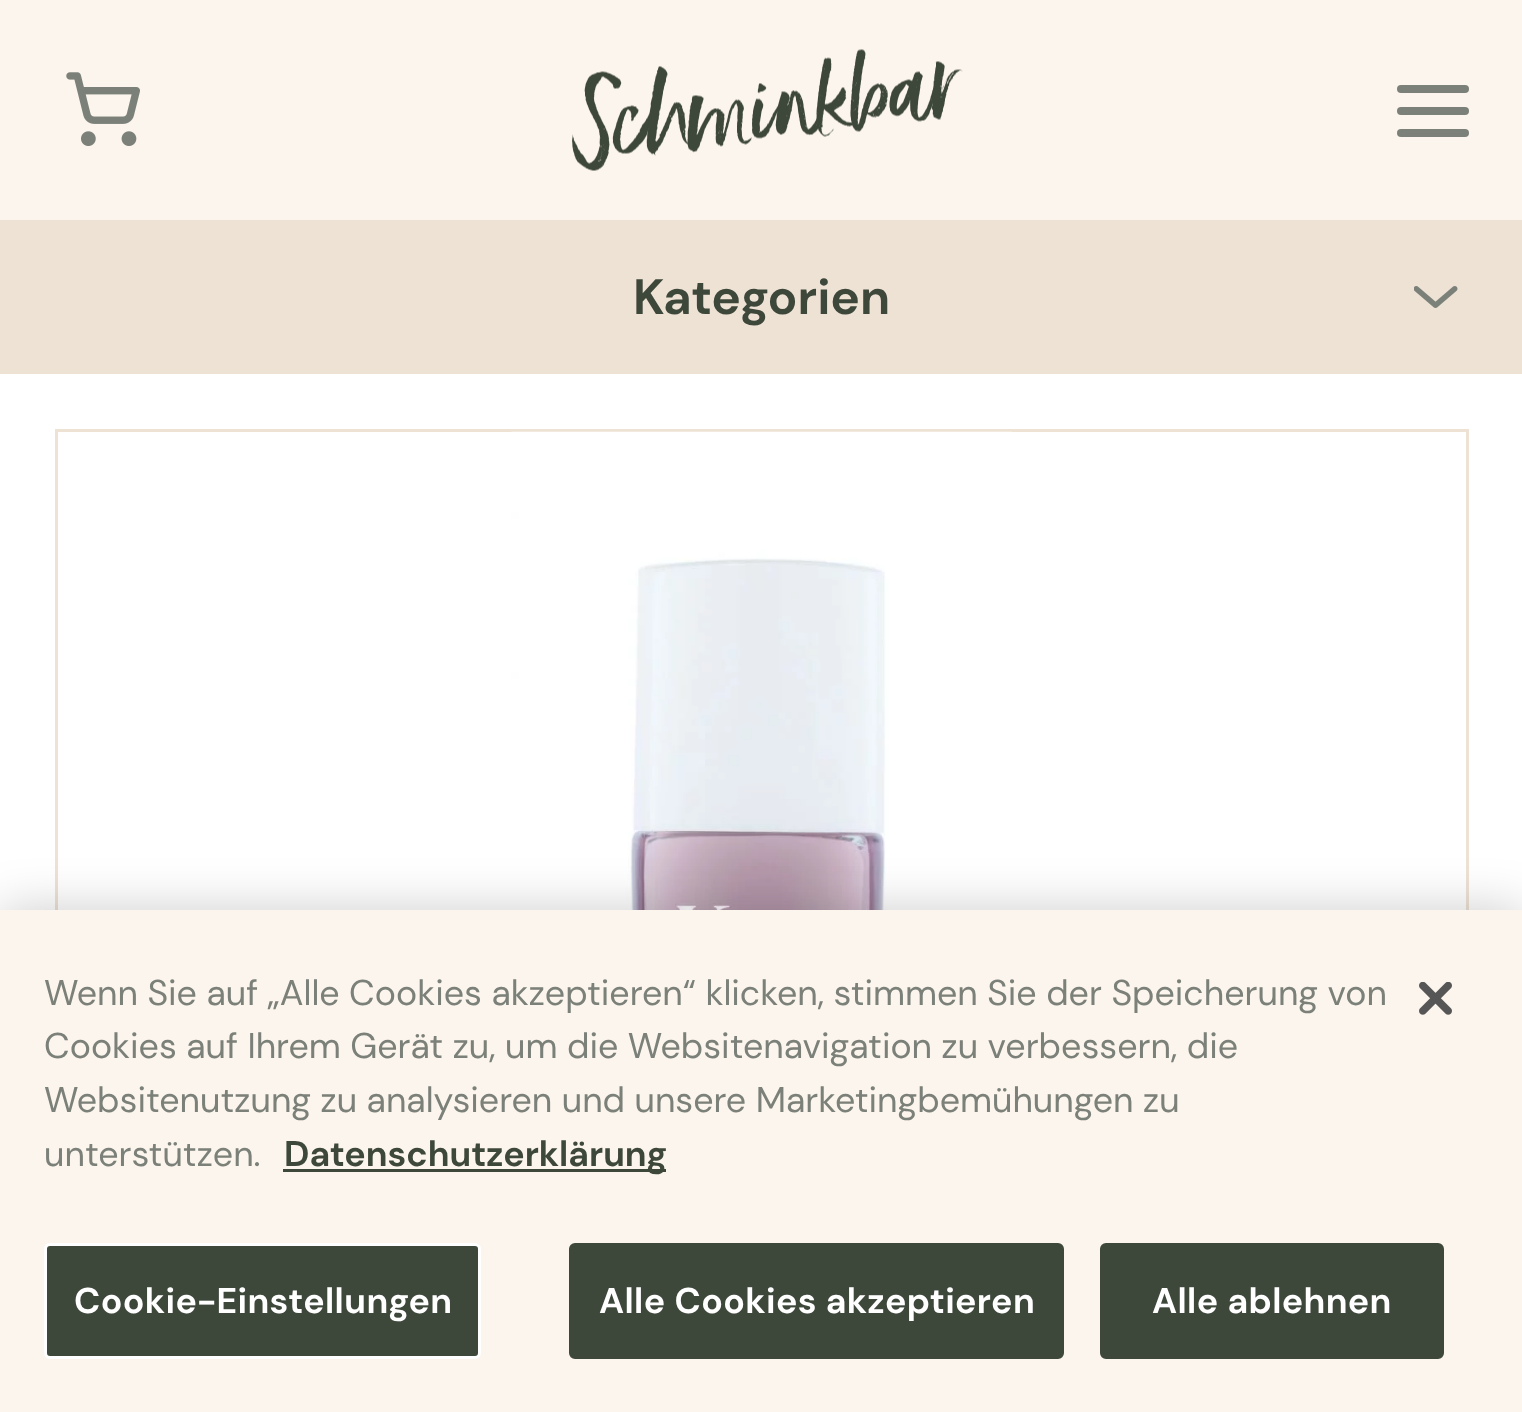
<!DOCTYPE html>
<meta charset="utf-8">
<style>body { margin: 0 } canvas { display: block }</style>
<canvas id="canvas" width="1522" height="1412"></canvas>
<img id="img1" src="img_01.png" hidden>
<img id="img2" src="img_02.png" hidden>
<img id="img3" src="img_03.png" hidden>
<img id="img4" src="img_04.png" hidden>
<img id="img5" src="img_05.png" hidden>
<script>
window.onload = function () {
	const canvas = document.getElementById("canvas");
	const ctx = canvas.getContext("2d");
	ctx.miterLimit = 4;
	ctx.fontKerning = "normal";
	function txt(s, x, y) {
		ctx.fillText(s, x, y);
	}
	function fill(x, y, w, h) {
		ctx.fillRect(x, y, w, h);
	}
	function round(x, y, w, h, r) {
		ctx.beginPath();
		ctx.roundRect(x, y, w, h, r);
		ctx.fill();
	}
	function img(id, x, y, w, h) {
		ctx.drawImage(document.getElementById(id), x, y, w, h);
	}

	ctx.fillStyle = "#FFFFFF";
	fill(0, 0, 1522, 1412);
	ctx.fillStyle = "#FCF5ED";
	fill(0, 0, 1522, 220);
	img("img1", 66, 72, 74, 74);
	img("img2", 572, 49, 391, 122);
	ctx.fillStyle = "#7B8179";
	round(1397, 85, 72, 8, 4);
	round(1397, 107, 72, 8, 4);
	round(1397, 129, 72, 8, 4);
	ctx.fillStyle = "#EEE2D5";
	fill(0, 220, 1522, 154);
	img("img3", 1414, 286, 44, 22);
	ctx.strokeStyle = "#EEE2D5";
	ctx.lineWidth = 3;
	ctx.strokeRect(56.5, 430.5, 1411, 792);
	img("img4", 511, 431, 501, 479);
	ctx.fillStyle = "rgba(0, 0, 0, 0.2)";
	ctx.filter = "blur(25px)";
	ctx.beginPath();
	ctx.rect(0, 910, 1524, 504);
	ctx.fill();
	ctx.filter = "none";
	ctx.fillStyle = "#FCF5ED";
	fill(0, 910, 1522, 502);
	ctx.fillStyle = "#3D473A";
	fill(283, 1169, 383, 3);
	ctx.beginPath();
	ctx.roundRect(45.5, 1244.5, 434, 113, 4.5);
	ctx.fill();
	ctx.strokeStyle = "#FFFFFF";
	ctx.stroke();
	ctx.beginPath();
	ctx.roundRect(570.5, 1244.5, 492, 113, 4.5);
	ctx.fill();
	ctx.strokeStyle = "#3D473A";
	ctx.stroke();
	ctx.beginPath();
	ctx.roundRect(1101.5, 1244.5, 341, 113, 4.5);
	ctx.fill();
	ctx.stroke();
	img("img5", 1419, 982, 33, 33);
	ctx.font = "bold 49.5px DM Sans";
	txt("Kategorien", 633, 314);
	ctx.font = "35.75px DM Sans";
	ctx.fillStyle = "#7B8179";
	txt("Wenn Sie auf „Alle Cookies akzeptieren“ klicken, stimmen Sie der Speicherung von", 44, 1005);
	txt("Cookies auf Ihrem Gerät zu, um die Websitenavigation zu verbessern, die", 44, 1058);
	txt("Websitenutzung zu analysieren und unsere Marketingbemühungen zu", 44, 1112);
	txt("unterstützen.", 44, 1166);
	ctx.font = "bold 35.75px DM Sans";
	ctx.fillStyle = "#3D473A";
	txt("Datenschutzerklärung", 284, 1166);
	ctx.letterSpacing = "0.4px";
	ctx.fillStyle = "#FFFFFF";
	txt("Cookie-Einstellungen", 74, 1313);
	txt("Alle Cookies akzeptieren", 599, 1313);
	txt("Alle ablehnen", 1152, 1313);
};
</script>
